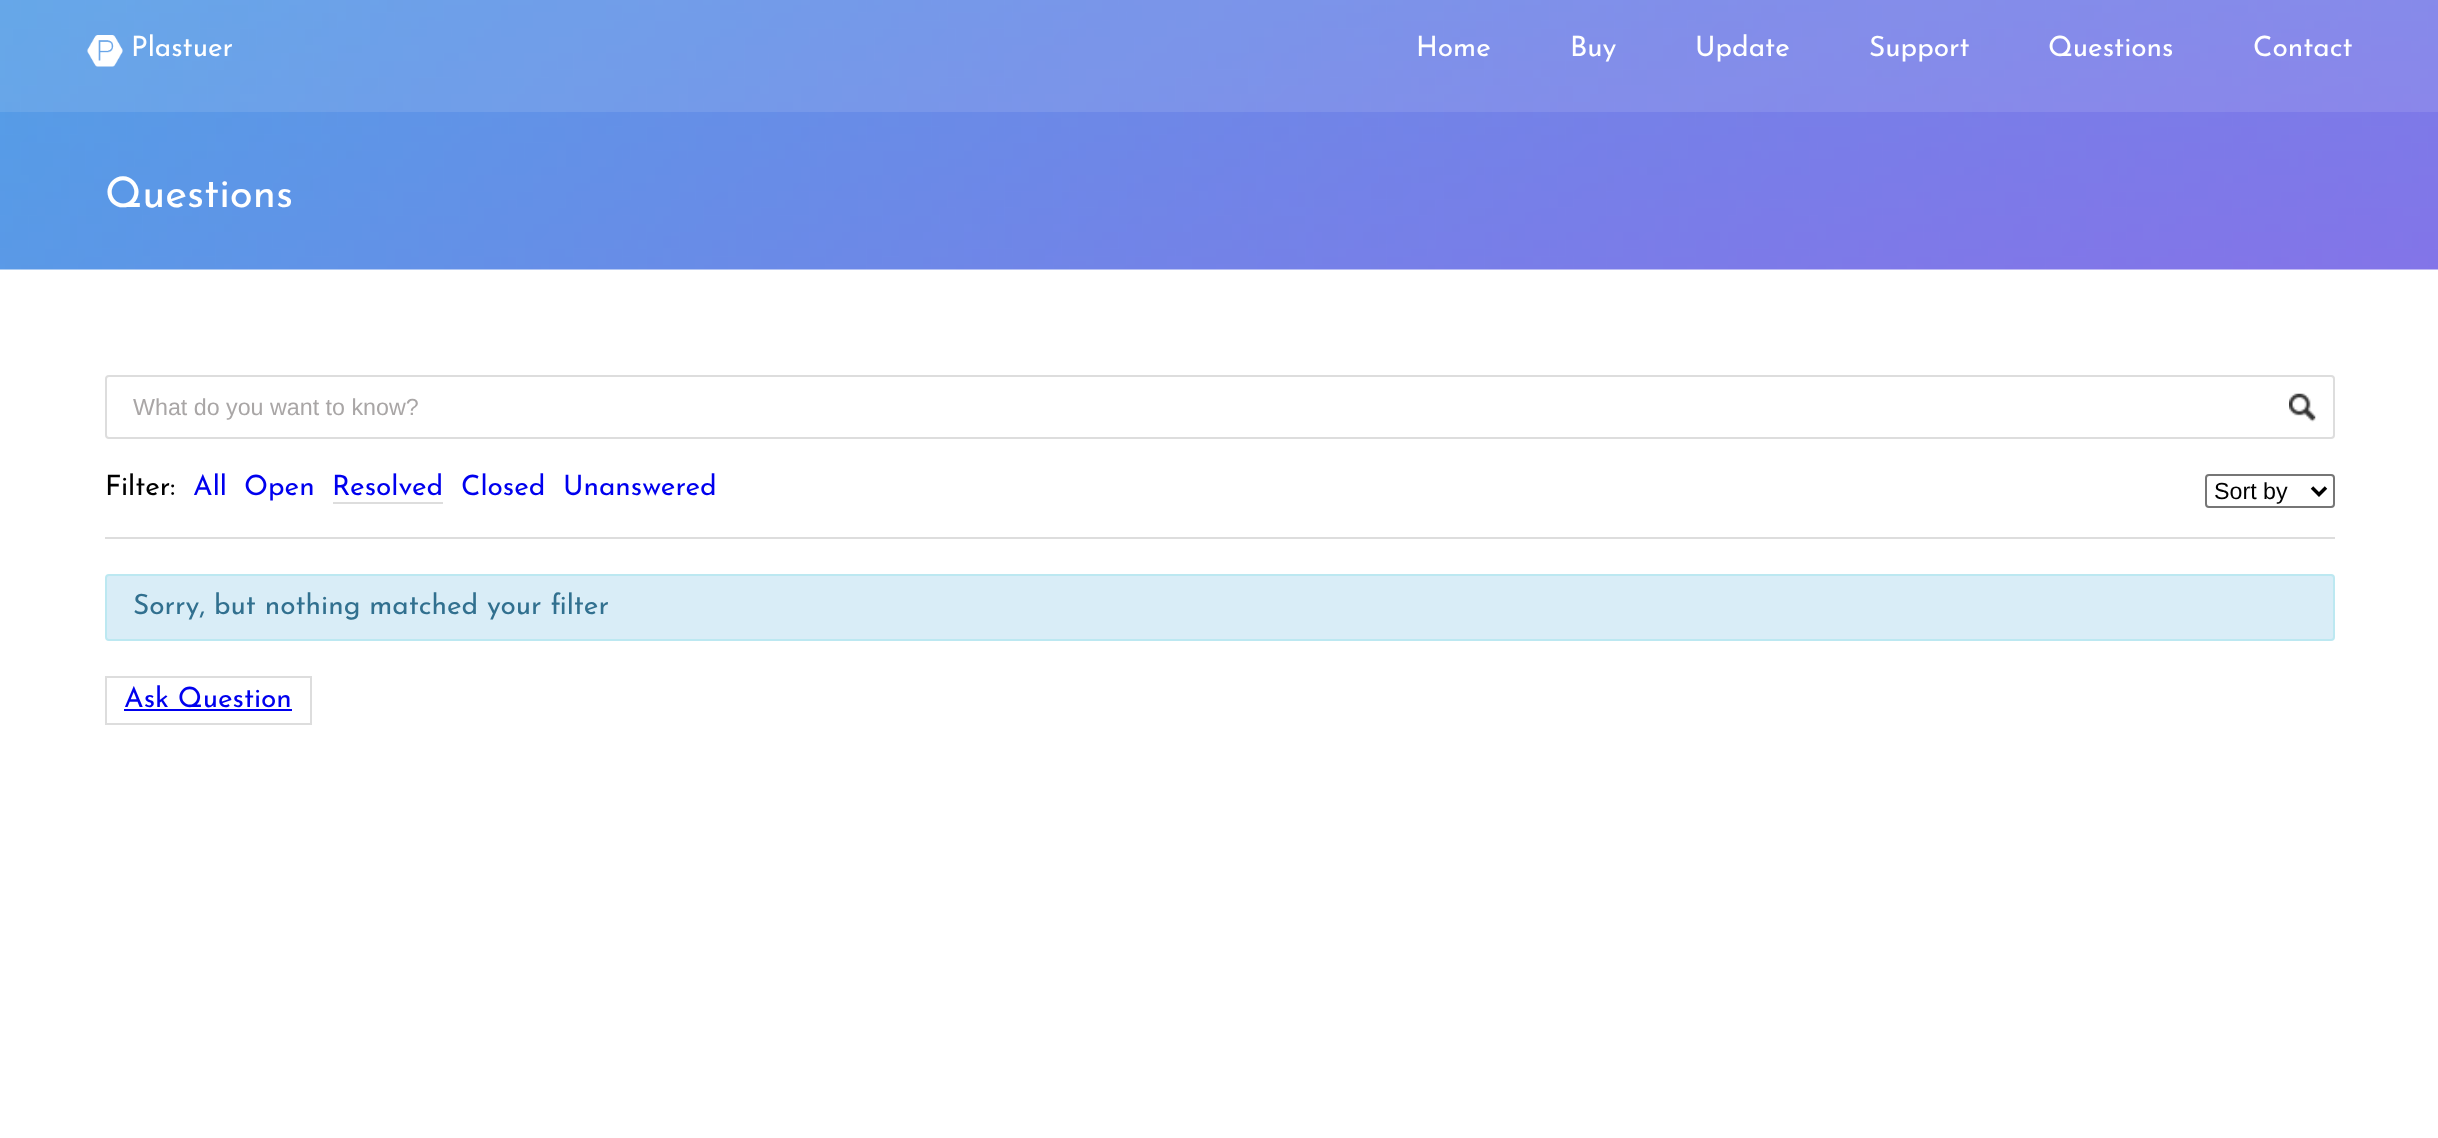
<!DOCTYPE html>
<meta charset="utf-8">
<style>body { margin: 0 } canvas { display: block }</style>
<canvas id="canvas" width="2438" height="1138"></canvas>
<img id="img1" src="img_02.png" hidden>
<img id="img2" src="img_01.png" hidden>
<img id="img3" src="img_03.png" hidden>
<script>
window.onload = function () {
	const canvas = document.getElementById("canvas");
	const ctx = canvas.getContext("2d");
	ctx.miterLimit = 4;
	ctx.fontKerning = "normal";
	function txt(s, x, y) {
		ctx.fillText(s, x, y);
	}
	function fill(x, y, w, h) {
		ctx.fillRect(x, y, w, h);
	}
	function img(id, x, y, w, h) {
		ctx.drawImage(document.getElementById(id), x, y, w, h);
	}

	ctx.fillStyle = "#FFFFFF";
	fill(0, 0, 2438, 1138);
	img("img1", 0, 0, 2438, 270);
	ctx.fillStyle = "rgba(255, 255, 255, 0.1)";
	fill(0, 0, 2438, 112);
	img("img2", 87, 35, 36, 32);
	img("img3", 2289, 393, 27, 29);
	ctx.beginPath();
	ctx.roundRect(106, 376, 2228, 62, 3);
	ctx.strokeStyle = "#DDDDDD";
	ctx.lineWidth = 2;
	ctx.stroke();
	ctx.fillStyle = "#DDDDDD";
	fill(333, 502, 110, 2);
	ctx.beginPath();
	ctx.roundRect(2206, 475, 128, 32, 3);
	ctx.strokeStyle = "#767676";
	ctx.stroke();
	ctx.beginPath();
	ctx.moveTo(2312, 487.5);
	ctx.lineTo(2319, 494.5);
	ctx.lineTo(2326, 487.5);
	ctx.strokeStyle = "#000000";
	ctx.lineWidth = 3.5;
	ctx.stroke();
	fill(105, 537, 2230, 2);
	ctx.fillStyle = "#D9EDF7";
	ctx.beginPath();
	ctx.roundRect(106, 575, 2228, 65, 3);
	ctx.fill();
	ctx.strokeStyle = "#BCE8F1";
	ctx.lineWidth = 2;
	ctx.stroke();
	ctx.strokeStyle = "#DDDDDD";
	ctx.strokeRect(106, 677, 205, 47);
	ctx.fillStyle = "#0000EE";
	fill(124, 709, 168, 2);
	ctx.font = "28px Josefin Sans";
	ctx.fillStyle = "#FFFFFF";
	txt("Plastuer", 131, 56);
	txt("Home", 1416, 56);
	txt("Buy", 1570, 56);
	txt("Update", 1695, 56);
	txt("Support", 1869, 56);
	txt("Questions", 2048, 56);
	txt("Contact", 2253, 56);
	ctx.font = "42px Josefin Sans";
	txt("Questions", 105, 207);
	ctx.font = "23.25px Liberation Sans";
	ctx.fillStyle = "#A9A6A6";
	txt("What do you want to know?", 133, 415);
	ctx.font = "28px Josefin Sans";
	ctx.fillStyle = "#000000";
	txt("Filter:", 105, 495);
	ctx.fillStyle = "#0000EE";
	txt("All", 193, 495);
	txt("Open", 244, 495);
	txt("Resolved", 332, 495);
	txt("Closed", 461, 495);
	txt("Unanswered", 563, 495);
	ctx.font = "23.25px Liberation Sans";
	ctx.fillStyle = "#000000";
	txt("Sort by", 2214, 499);
	ctx.font = "28px Josefin Sans";
	ctx.fillStyle = "#31708F";
	txt("Sorry, but nothing matched your filter", 133, 614);
	ctx.fillStyle = "#0000EE";
	txt("Ask Question", 124, 707);
};
</script>
